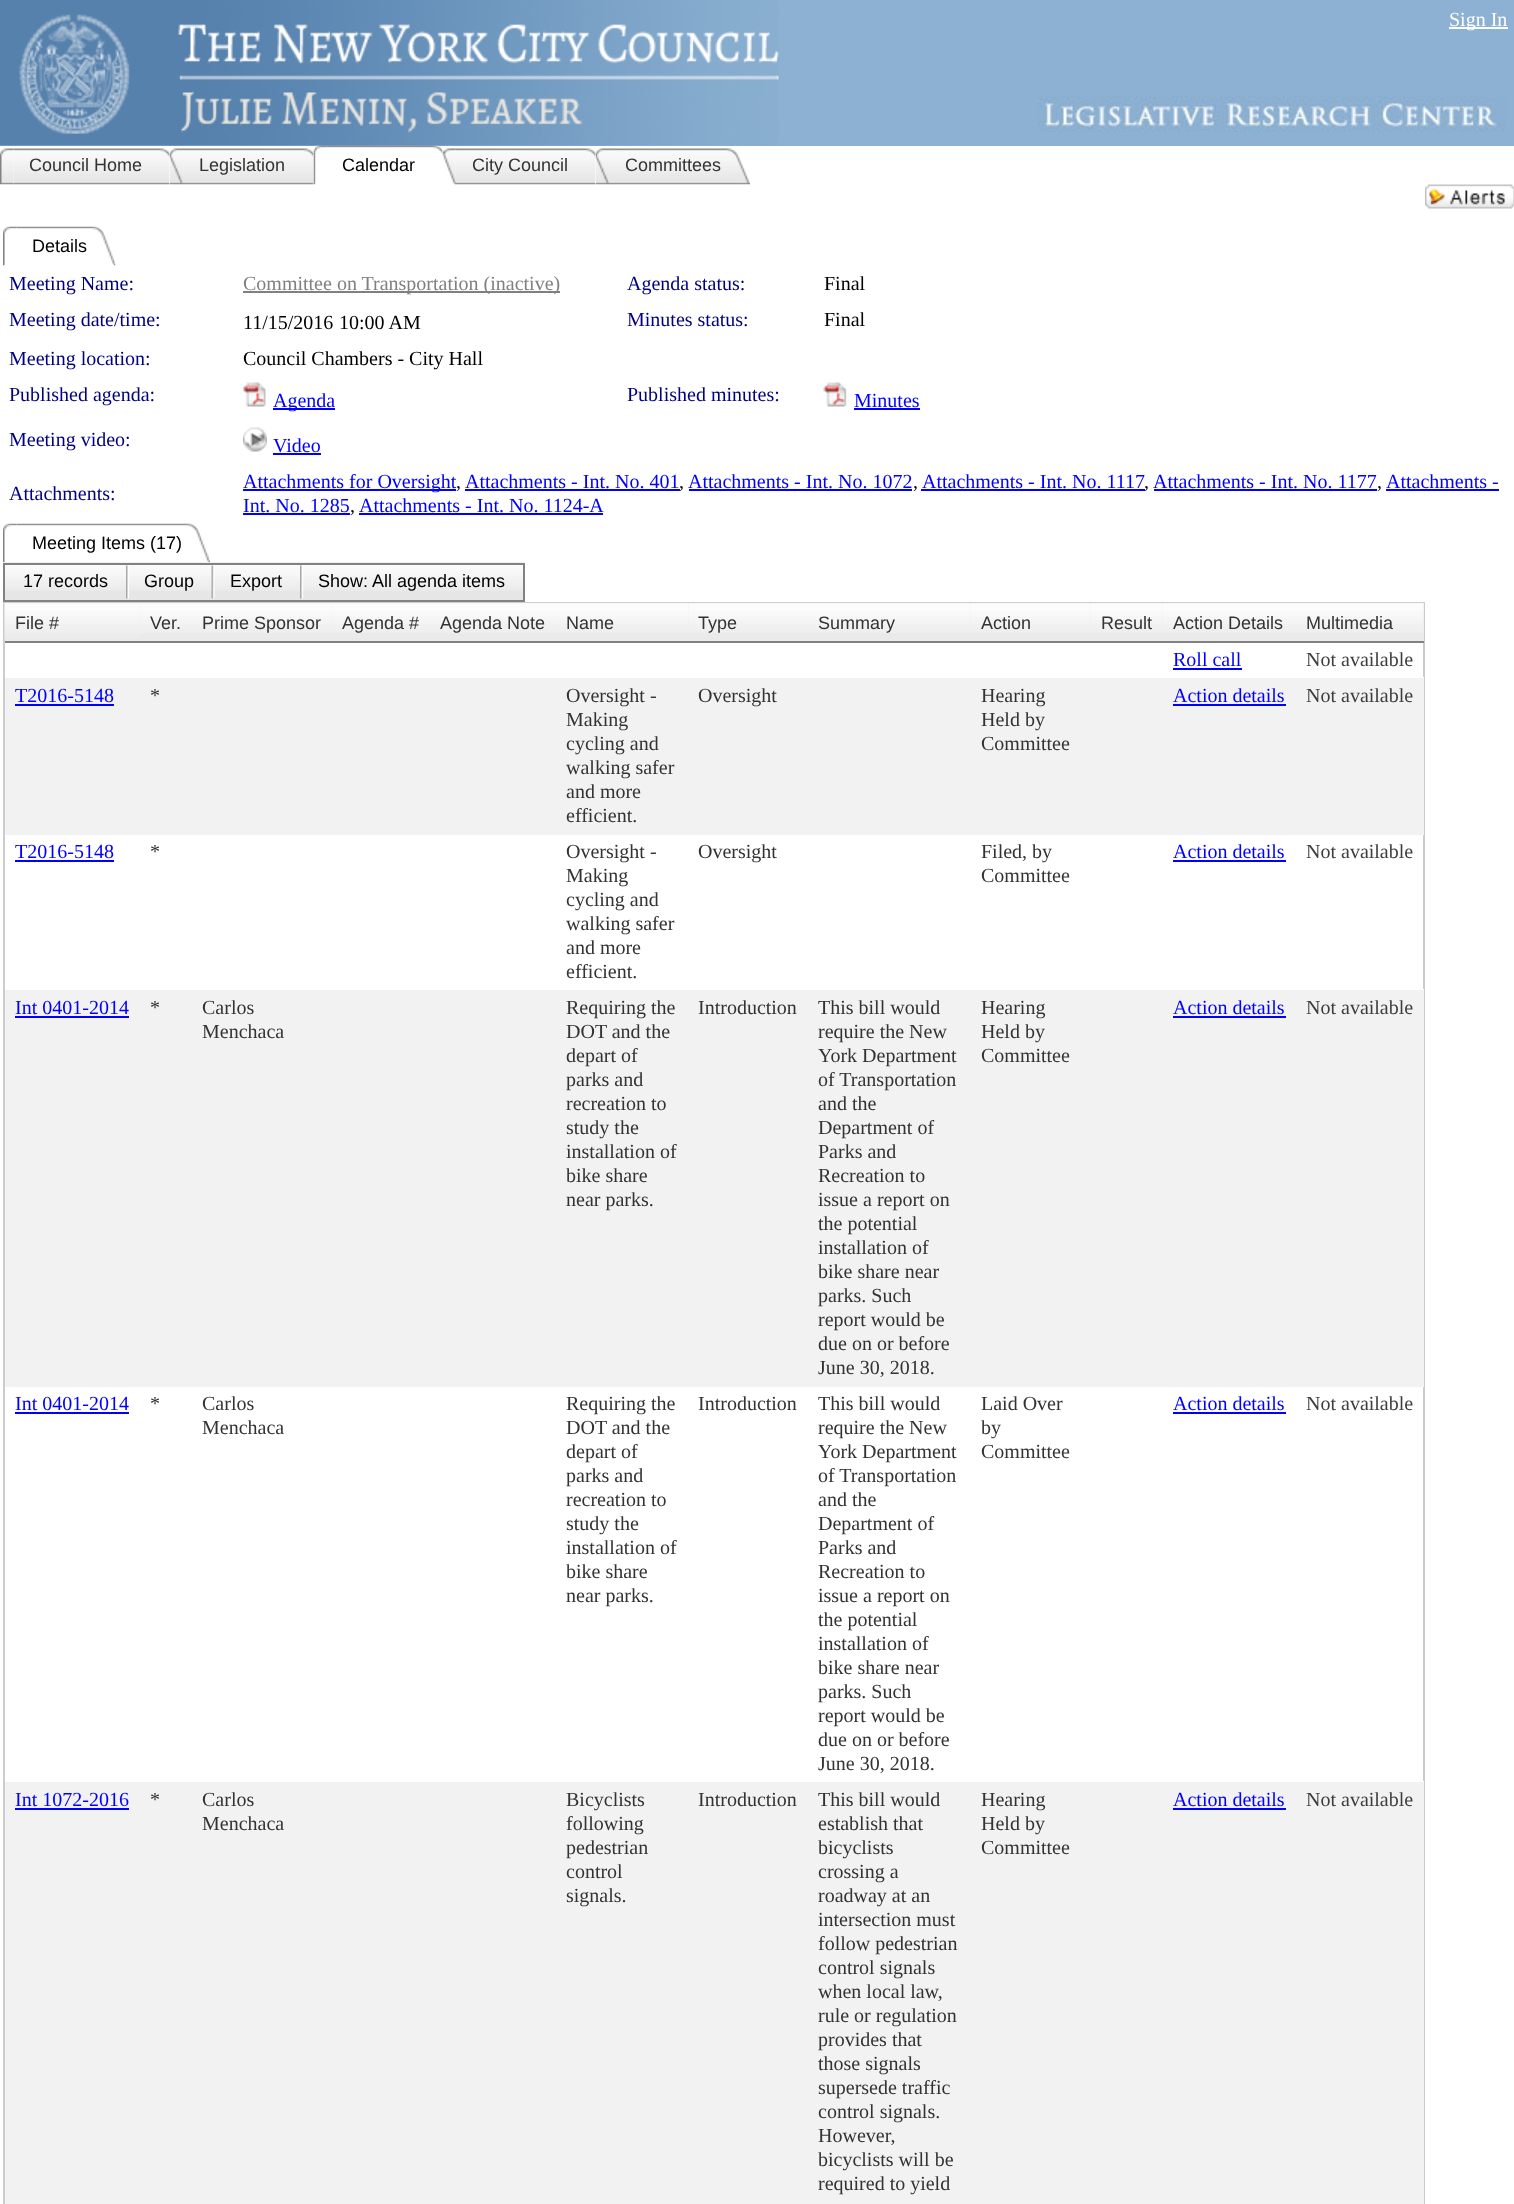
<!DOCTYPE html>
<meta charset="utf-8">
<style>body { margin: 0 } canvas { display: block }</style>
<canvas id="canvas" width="1514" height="2204"></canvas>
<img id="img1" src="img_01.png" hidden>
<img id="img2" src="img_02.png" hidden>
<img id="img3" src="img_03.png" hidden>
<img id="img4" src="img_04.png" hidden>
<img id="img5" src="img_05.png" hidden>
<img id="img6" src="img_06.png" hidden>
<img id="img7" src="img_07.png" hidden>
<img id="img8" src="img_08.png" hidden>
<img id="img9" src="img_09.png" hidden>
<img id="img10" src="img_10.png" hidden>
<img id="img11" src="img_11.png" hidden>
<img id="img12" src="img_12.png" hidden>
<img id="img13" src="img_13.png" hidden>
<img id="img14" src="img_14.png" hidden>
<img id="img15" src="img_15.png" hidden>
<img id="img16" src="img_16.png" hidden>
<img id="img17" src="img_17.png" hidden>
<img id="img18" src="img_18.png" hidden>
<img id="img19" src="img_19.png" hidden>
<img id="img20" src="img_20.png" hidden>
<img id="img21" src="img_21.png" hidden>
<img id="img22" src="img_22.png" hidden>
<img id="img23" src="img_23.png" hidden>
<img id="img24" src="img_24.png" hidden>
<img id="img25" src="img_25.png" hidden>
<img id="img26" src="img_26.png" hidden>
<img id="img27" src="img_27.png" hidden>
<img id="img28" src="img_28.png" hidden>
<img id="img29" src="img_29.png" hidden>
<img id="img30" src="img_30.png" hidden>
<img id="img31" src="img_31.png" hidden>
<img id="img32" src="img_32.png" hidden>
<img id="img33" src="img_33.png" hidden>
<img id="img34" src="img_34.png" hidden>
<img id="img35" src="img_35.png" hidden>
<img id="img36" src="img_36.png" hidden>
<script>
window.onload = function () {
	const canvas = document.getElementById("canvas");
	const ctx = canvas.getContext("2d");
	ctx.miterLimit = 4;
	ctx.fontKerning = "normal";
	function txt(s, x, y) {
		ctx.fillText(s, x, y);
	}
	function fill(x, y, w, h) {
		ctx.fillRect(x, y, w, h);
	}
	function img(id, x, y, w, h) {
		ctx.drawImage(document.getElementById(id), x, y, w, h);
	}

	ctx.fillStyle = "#FFFFFF";
	fill(0, 0, 1514, 2204);
	ctx.fillStyle = "#8CB1D2";
	fill(0, 0, 1514, 146);
	img("img1", 0, 0, 779, 146);
	img("img2", 1038, 96, 468, 36);
	ctx.fillStyle = "#FFFFFF";
	fill(1449, 27, 59, 2);
	img("img3", 0, 148, 14, 37);
	img("img4", 13, 148, 157, 37);
	img("img5", 169, 148, 15, 37);
	img("img6", 183, 148, 131, 37);
	img("img7", 313, 145, 15, 40);
	img("img8", 327, 145, 116, 9);
	img("img9", 442, 148, 15, 37);
	img("img10", 456, 148, 140, 37);
	img("img11", 595, 148, 15, 37);
	img("img12", 609, 148, 141, 37);
	img("img13", 1425, 184, 89, 25);
	img("img14", 3, 226, 14, 40);
	img("img15", 16, 226, 100, 40);
	ctx.fillStyle = "#808080";
	fill(243, 291, 317, 2);
	img("img16", 243, 382, 23, 25);
	ctx.fillStyle = "#0000FF";
	fill(273, 408, 62, 2);
	img("img17", 823, 382, 24, 25);
	fill(854, 408, 66, 2);
	img("img18", 243, 427, 24, 25);
	fill(273, 453, 48, 2);
	fill(243, 489, 213, 2);
	fill(465, 489, 215, 2);
	fill(689, 489, 223, 2);
	fill(921, 489, 224, 2);
	fill(1154, 489, 223, 2);
	fill(1386, 489, 113, 2);
	fill(243, 513, 107, 2);
	fill(359, 513, 244, 2);
	img("img19", 3, 523, 14, 40);
	img("img20", 16, 523, 194, 40);
	ctx.fillStyle = "#E6E6E6";
	fill(5, 591, 518, 9);
	img("img21", 3, 562, 522, 29);
	ctx.strokeStyle = "#828282";
	ctx.lineWidth = 2;
	ctx.strokeRect(4, 564, 520, 37);
	img("img22", 126, 565, 4, 34);
	img("img23", 211, 565, 4, 34);
	img("img24", 300, 565, 4, 34);
	ctx.strokeStyle = "#CCCCCC";
	ctx.strokeRect(4, 603, 1420, 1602);
	ctx.fillStyle = "#EAEAEA";
	fill(5, 603, 1419, 38);
	img("img25", 4, 603, 136, 38);
	ctx.fillStyle = "#828282";
	fill(5, 641, 1419, 2);
	img("img26", 139, 603, 53, 30);
	img("img27", 192, 603, 140, 30);
	img("img28", 331, 603, 98, 30);
	img("img29", 429, 603, 126, 30);
	img("img30", 555, 603, 134, 30);
	img("img31", 688, 603, 119, 30);
	img("img32", 807, 603, 164, 30);
	img("img33", 970, 603, 121, 30);
	img("img34", 1090, 603, 73, 30);
	img("img35", 1162, 603, 134, 30);
	img("img36", 1296, 603, 128, 30);
	ctx.fillStyle = "#0000FF";
	fill(1173, 668, 69, 2);
	ctx.fillStyle = "#FFFFFF";
	fill(1423, 677, 1, 1);
	ctx.fillStyle = "#F2F2F2";
	fill(5, 678, 1419, 155);
	fill(5, 833, 1419, 2);
	ctx.fillStyle = "#0000FF";
	fill(15, 704, 99, 2);
	fill(1173, 704, 113, 2);
	fill(15, 860, 99, 2);
	fill(1173, 860, 113, 2);
	ctx.fillStyle = "#FFFFFF";
	fill(1423, 989, 1, 1);
	ctx.fillStyle = "#F2F2F2";
	fill(5, 990, 1419, 395);
	fill(5, 1385, 1419, 2);
	ctx.fillStyle = "#0000FF";
	fill(15, 1016, 114, 2);
	fill(1173, 1016, 113, 2);
	fill(15, 1412, 114, 2);
	fill(1173, 1412, 113, 2);
	ctx.fillStyle = "#FFFFFF";
	fill(1423, 1781, 1, 1);
	ctx.fillStyle = "#F2F2F2";
	fill(5, 1782, 1419, 422);
	ctx.fillStyle = "#0000FF";
	fill(15, 1808, 114, 2);
	fill(1173, 1808, 113, 2);
	ctx.font = "20px Liberation Serif";
	ctx.fillStyle = "#FFFFFF";
	txt("Sign In", 1449, 26);
	ctx.font = "18px Liberation Sans";
	ctx.fillStyle = "#333333";
	txt("Council Home", 29, 171);
	txt("Legislation", 199, 171);
	ctx.fillStyle = "#000000";
	txt("Calendar", 342, 171);
	ctx.fillStyle = "#333333";
	txt("City Council", 472, 171);
	txt("Committees", 625, 171);
	ctx.fillStyle = "#000000";
	txt("Details", 32, 252);
	ctx.font = "20px Liberation Serif";
	ctx.fillStyle = "#000080";
	txt("Meeting Name:", 9, 290);
	ctx.fillStyle = "#808080";
	txt("Committee on Transportation (inactive)", 243, 290);
	ctx.fillStyle = "#000080";
	txt("Agenda status:", 627, 290);
	ctx.fillStyle = "#000000";
	txt("Final", 824, 290);
	ctx.fillStyle = "#000080";
	txt("Meeting date/time:", 9, 326);
	ctx.fillStyle = "#000000";
	txt("11/15/2016", 243, 329);
	txt("10:00 AM", 339, 329);
	ctx.fillStyle = "#000080";
	txt("Minutes status:", 627, 326);
	ctx.fillStyle = "#000000";
	txt("Final", 824, 326);
	ctx.fillStyle = "#000080";
	txt("Meeting location:", 9, 365);
	ctx.fillStyle = "#000000";
	txt("Council Chambers - City Hall", 243, 365);
	ctx.fillStyle = "#000080";
	txt("Published agenda:", 9, 401);
	ctx.fillStyle = "#0000FF";
	txt("Agenda", 273, 407);
	ctx.fillStyle = "#000080";
	txt("Published minutes:", 627, 401);
	ctx.fillStyle = "#0000FF";
	txt("Minutes", 854, 407);
	ctx.fillStyle = "#000080";
	txt("Meeting video:", 9, 446);
	ctx.fillStyle = "#0000FF";
	txt("Video", 273, 452);
	ctx.fillStyle = "#000080";
	txt("Attachments:", 9, 500);
	ctx.fillStyle = "#0000FF";
	txt("Attachments for Oversight", 243, 488);
	ctx.fillStyle = "#000000";
	txt(",", 456, 488);
	ctx.fillStyle = "#0000FF";
	txt("Attachments - Int. No. 401", 465, 488);
	ctx.fillStyle = "#000000";
	txt(",", 679, 488);
	ctx.fillStyle = "#0000FF";
	txt("Attachments - Int. No. 1072", 688, 488);
	ctx.fillStyle = "#000000";
	txt(",", 913, 488);
	ctx.fillStyle = "#0000FF";
	txt("Attachments - Int. No. 1117", 922, 488);
	ctx.fillStyle = "#000000";
	txt(",", 1144, 488);
	ctx.fillStyle = "#0000FF";
	txt("Attachments - Int. No. 1177", 1153, 488);
	ctx.fillStyle = "#000000";
	txt(",", 1377, 488);
	ctx.fillStyle = "#0000FF";
	txt("Attachments -", 1386, 488);
	txt("Int. No. 1285", 243, 512);
	ctx.fillStyle = "#000000";
	txt(",", 350, 512);
	ctx.fillStyle = "#0000FF";
	txt("Attachments - Int. No. 1124-A", 359, 512);
	ctx.font = "18px Liberation Sans";
	ctx.fillStyle = "#000000";
	txt("Meeting Items (17)", 32, 549);
	txt("17 records", 23, 587);
	txt("Group", 144, 587);
	txt("Export", 230, 587);
	txt("Show: All agenda items", 318, 587);
	ctx.fillStyle = "#333333";
	txt("File #", 15, 629);
	txt("Ver.", 150, 629);
	txt("Prime Sponsor", 202, 629);
	txt("Agenda #", 342, 629);
	txt("Agenda Note", 440, 629);
	txt("Name", 566, 629);
	txt("Type", 698, 629);
	txt("Summary", 818, 629);
	txt("Action", 981, 629);
	txt("Result", 1101, 629);
	txt("Action Details", 1173, 629);
	txt("Multimedia", 1306, 629);
	ctx.font = "20px Liberation Serif";
	ctx.fillStyle = "#0000FF";
	txt("Roll call", 1173, 666);
	ctx.fillStyle = "#3D3D3D";
	txt("Not available", 1306, 666);
	ctx.fillStyle = "#0000FF";
	txt("T2016-5148", 15, 702);
	ctx.fillStyle = "#333333";
	txt("*", 150, 702);
	txt("Oversight -", 566, 702);
	txt("Making", 566, 726);
	txt("cycling and", 566, 750);
	txt("walking safer", 566, 774);
	txt("and more", 566, 798);
	txt("efficient.", 566, 822);
	txt("Oversight", 698, 702);
	txt("Hearing", 981, 702);
	txt("Held by", 981, 726);
	txt("Committee", 981, 750);
	ctx.fillStyle = "#0000FF";
	txt("Action details", 1173, 702);
	ctx.fillStyle = "#3D3D3D";
	txt("Not available", 1306, 702);
	ctx.fillStyle = "#0000FF";
	txt("T2016-5148", 15, 858);
	ctx.fillStyle = "#333333";
	txt("*", 150, 858);
	txt("Oversight -", 566, 858);
	txt("Making", 566, 882);
	txt("cycling and", 566, 906);
	txt("walking safer", 566, 930);
	txt("and more", 566, 954);
	txt("efficient.", 566, 978);
	txt("Oversight", 698, 858);
	txt("Filed, by", 981, 858);
	txt("Committee", 981, 882);
	ctx.fillStyle = "#0000FF";
	txt("Action details", 1173, 858);
	ctx.fillStyle = "#3D3D3D";
	txt("Not available", 1306, 858);
	ctx.fillStyle = "#0000FF";
	txt("Int 0401-2014", 15, 1014);
	ctx.fillStyle = "#333333";
	txt("*", 150, 1014);
	txt("Carlos", 202, 1014);
	txt("Menchaca", 202, 1038);
	txt("Requiring the", 566, 1014);
	txt("DOT and the", 566, 1038);
	txt("depart of", 566, 1062);
	txt("parks and", 566, 1086);
	txt("recreation to", 566, 1110);
	txt("study the", 566, 1134);
	txt("installation of", 566, 1158);
	txt("bike share", 566, 1182);
	txt("near parks.", 566, 1206);
	txt("Introduction", 698, 1014);
	txt("This bill would", 818, 1014);
	txt("require the New", 818, 1038);
	txt("York Department", 818, 1062);
	txt("of Transportation", 818, 1086);
	txt("and the", 818, 1110);
	txt("Department of", 818, 1134);
	txt("Parks and", 818, 1158);
	txt("Recreation to", 818, 1182);
	txt("issue a report on", 818, 1206);
	txt("the potential", 818, 1230);
	txt("installation of", 818, 1254);
	txt("bike share near", 818, 1278);
	txt("parks. Such", 818, 1302);
	txt("report would be", 818, 1326);
	txt("due on or before", 818, 1350);
	txt("June 30, 2018.", 818, 1374);
	txt("Hearing", 981, 1014);
	txt("Held by", 981, 1038);
	txt("Committee", 981, 1062);
	ctx.fillStyle = "#0000FF";
	txt("Action details", 1173, 1014);
	ctx.fillStyle = "#3D3D3D";
	txt("Not available", 1306, 1014);
	ctx.fillStyle = "#0000FF";
	txt("Int 0401-2014", 15, 1410);
	ctx.fillStyle = "#333333";
	txt("*", 150, 1410);
	txt("Carlos", 202, 1410);
	txt("Menchaca", 202, 1434);
	txt("Requiring the", 566, 1410);
	txt("DOT and the", 566, 1434);
	txt("depart of", 566, 1458);
	txt("parks and", 566, 1482);
	txt("recreation to", 566, 1506);
	txt("study the", 566, 1530);
	txt("installation of", 566, 1554);
	txt("bike share", 566, 1578);
	txt("near parks.", 566, 1602);
	txt("Introduction", 698, 1410);
	txt("This bill would", 818, 1410);
	txt("require the New", 818, 1434);
	txt("York Department", 818, 1458);
	txt("of Transportation", 818, 1482);
	txt("and the", 818, 1506);
	txt("Department of", 818, 1530);
	txt("Parks and", 818, 1554);
	txt("Recreation to", 818, 1578);
	txt("issue a report on", 818, 1602);
	txt("the potential", 818, 1626);
	txt("installation of", 818, 1650);
	txt("bike share near", 818, 1674);
	txt("parks. Such", 818, 1698);
	txt("report would be", 818, 1722);
	txt("due on or before", 818, 1746);
	txt("June 30, 2018.", 818, 1770);
	txt("Laid Over", 981, 1410);
	txt("by", 981, 1434);
	txt("Committee", 981, 1458);
	ctx.fillStyle = "#0000FF";
	txt("Action details", 1173, 1410);
	ctx.fillStyle = "#3D3D3D";
	txt("Not available", 1306, 1410);
	ctx.fillStyle = "#0000FF";
	txt("Int 1072-2016", 15, 1806);
	ctx.fillStyle = "#333333";
	txt("*", 150, 1806);
	txt("Carlos", 202, 1806);
	txt("Menchaca", 202, 1830);
	txt("Bicyclists", 566, 1806);
	txt("following", 566, 1830);
	txt("pedestrian", 566, 1854);
	txt("control", 566, 1878);
	txt("signals.", 566, 1902);
	txt("Introduction", 698, 1806);
	txt("This bill would", 818, 1806);
	txt("establish that", 818, 1830);
	txt("bicyclists", 818, 1854);
	txt("crossing a", 818, 1878);
	txt("roadway at an", 818, 1902);
	txt("intersection must", 818, 1926);
	txt("follow pedestrian", 818, 1950);
	txt("control signals", 818, 1974);
	txt("when local law,", 818, 1998);
	txt("rule or regulation", 818, 2022);
	txt("provides that", 818, 2046);
	txt("those signals", 818, 2070);
	txt("supersede traffic", 818, 2094);
	txt("control signals.", 818, 2118);
	txt("However,", 818, 2142);
	txt("bicyclists will be", 818, 2166);
	txt("required to yield", 818, 2190);
	txt("Hearing", 981, 1806);
	txt("Held by", 981, 1830);
	txt("Committee", 981, 1854);
	ctx.fillStyle = "#0000FF";
	txt("Action details", 1173, 1806);
	ctx.fillStyle = "#3D3D3D";
	txt("Not available", 1306, 1806);
};
</script>
